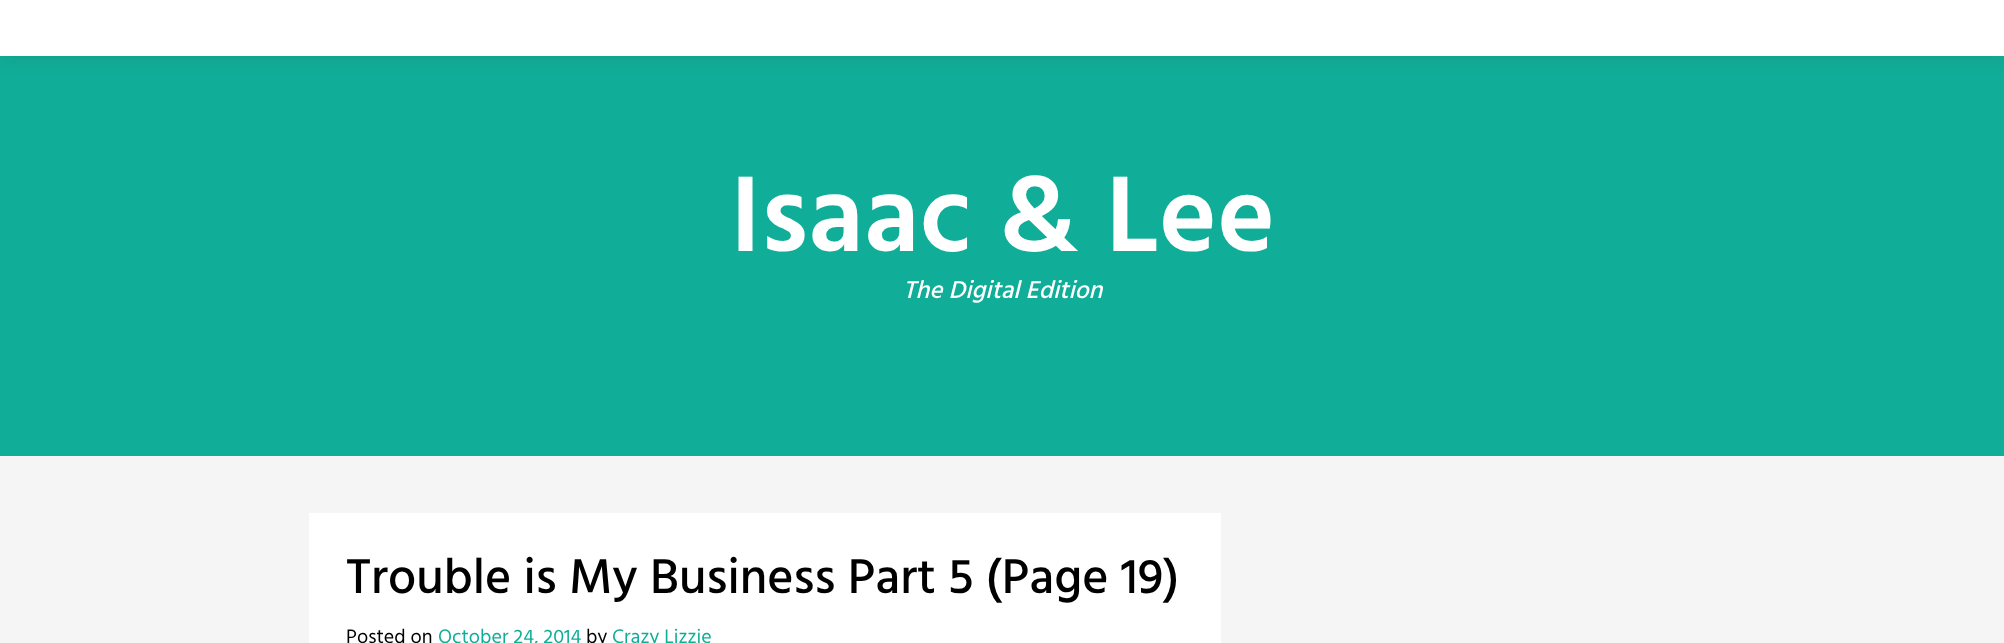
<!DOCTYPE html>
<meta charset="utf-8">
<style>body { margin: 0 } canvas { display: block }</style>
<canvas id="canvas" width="2004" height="643"></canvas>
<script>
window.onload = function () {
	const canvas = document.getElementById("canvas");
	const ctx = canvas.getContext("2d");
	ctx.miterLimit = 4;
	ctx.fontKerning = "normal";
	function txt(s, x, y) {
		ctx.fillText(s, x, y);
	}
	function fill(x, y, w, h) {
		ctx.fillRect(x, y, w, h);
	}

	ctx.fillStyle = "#F5F5F5";
	fill(0, 0, 2004, 643);
	ctx.fillStyle = "#10AE98";
	fill(0, 56, 2004, 400);
	ctx.fillStyle = "rgba(50, 50, 50, 0.08)";
	ctx.filter = "blur(7px)";
	ctx.beginPath();
	ctx.rect(0, 6, 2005, 57);
	ctx.fill();
	ctx.filter = "none";
	ctx.fillStyle = "#FFFFFF";
	fill(0, 0, 2004, 56);
	fill(309, 513, 912, 130);
	ctx.font = "600 110px Hind";
	txt("Isaac & Lee", 730, 251);
	ctx.font = "italic 500 25px Hind";
	txt("The Digital Edition", 903, 298);
	ctx.font = "500 50px Hind";
	ctx.fillStyle = "#000000";
	txt("Trouble is My Business Part 5 (Page 19)", 346, 593);
	ctx.font = "20px Hind";
	txt("Posted on", 346, 643);
	ctx.fillStyle = "#10AE98";
	txt("October 24, 2014", 438, 643);
	ctx.fillStyle = "#000000";
	txt("by", 586, 643);
	ctx.fillStyle = "#10AE98";
	txt("Crazy Lizzie", 612, 643);
};
</script>
